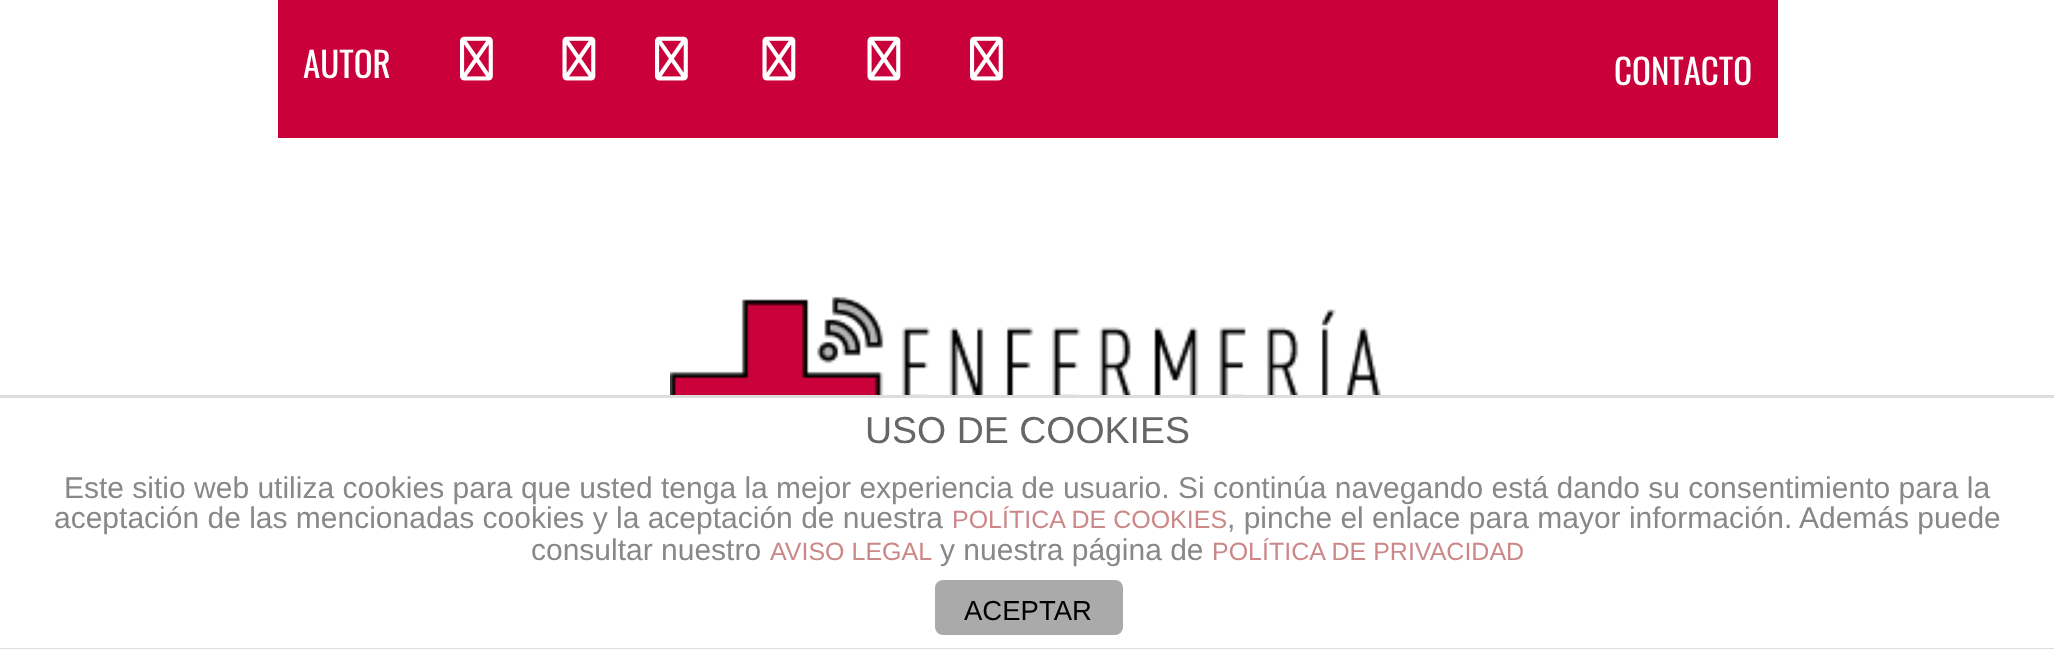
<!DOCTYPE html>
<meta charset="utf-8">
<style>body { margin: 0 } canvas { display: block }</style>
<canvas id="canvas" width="2054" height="649"></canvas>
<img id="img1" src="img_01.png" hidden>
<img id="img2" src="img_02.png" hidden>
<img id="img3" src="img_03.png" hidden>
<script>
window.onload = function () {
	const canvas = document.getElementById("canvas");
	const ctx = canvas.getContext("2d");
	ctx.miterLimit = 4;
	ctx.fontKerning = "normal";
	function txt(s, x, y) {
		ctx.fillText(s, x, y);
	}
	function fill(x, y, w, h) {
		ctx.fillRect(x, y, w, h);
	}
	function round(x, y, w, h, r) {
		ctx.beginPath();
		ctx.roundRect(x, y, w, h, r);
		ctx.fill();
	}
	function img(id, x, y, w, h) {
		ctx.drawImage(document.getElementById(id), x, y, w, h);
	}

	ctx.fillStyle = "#FFFFFF";
	fill(0, 0, 2054, 649);
	ctx.fillStyle = "#CA003A";
	fill(278, 0, 1500, 138);
	img("img1", 460, 36, 33, 45);
	img("img2", 562, 36, 34, 45);
	img("img1", 655, 36, 33, 45);
	img("img2", 762, 36, 34, 45);
	img("img2", 867, 36, 34, 45);
	img("img1", 970, 36, 33, 45);
	img("img3", 670, 296, 711, 99);
	ctx.fillStyle = "#DDDDDD";
	fill(0, 395, 2054, 3);
	fill(0, 648, 2054, 1);
	ctx.fillStyle = "#AAAAAA";
	round(935, 580, 188, 55, 8);
	ctx.font = "35px Oswald";
	ctx.fillStyle = "#FFFFFF";
	txt("AUTOR", 303, 78);
	txt("CONTACTO", 1614, 85);
	ctx.font = "37.5px Liberation Sans";
	ctx.fillStyle = "#666666";
	txt("USO DE COOKIES", 865, 443);
	ctx.font = "30px Liberation Sans";
	ctx.fillStyle = "#888888";
	txt("Este sitio web utiliza cookies para que usted tenga la mejor experiencia de usuario. Si continúa navegando está dando su consentimiento para la", 64, 498);
	txt("aceptación de las mencionadas cookies y la aceptación de nuestra", 54, 528);
	ctx.font = "25px Liberation Sans";
	ctx.fillStyle = "#CC8888";
	txt("POLÍTICA DE COOKIES", 952, 528);
	ctx.font = "30px Liberation Sans";
	ctx.fillStyle = "#888888";
	txt(", pinche el enlace para mayor información. Además puede", 1227, 528);
	txt("consultar nuestro", 531, 560);
	ctx.font = "25px Liberation Sans";
	ctx.fillStyle = "#CC8888";
	txt("AVISO LEGAL", 770, 560);
	ctx.font = "30px Liberation Sans";
	ctx.fillStyle = "#888888";
	txt("y nuestra página de", 940, 560);
	ctx.font = "25px Liberation Sans";
	ctx.fillStyle = "#CC8888";
	txt("POLÍTICA DE PRIVACIDAD", 1212, 560);
	ctx.font = "27.5px Liberation Sans";
	ctx.fillStyle = "#000000";
	txt("ACEPTAR", 964, 620);
};
</script>
